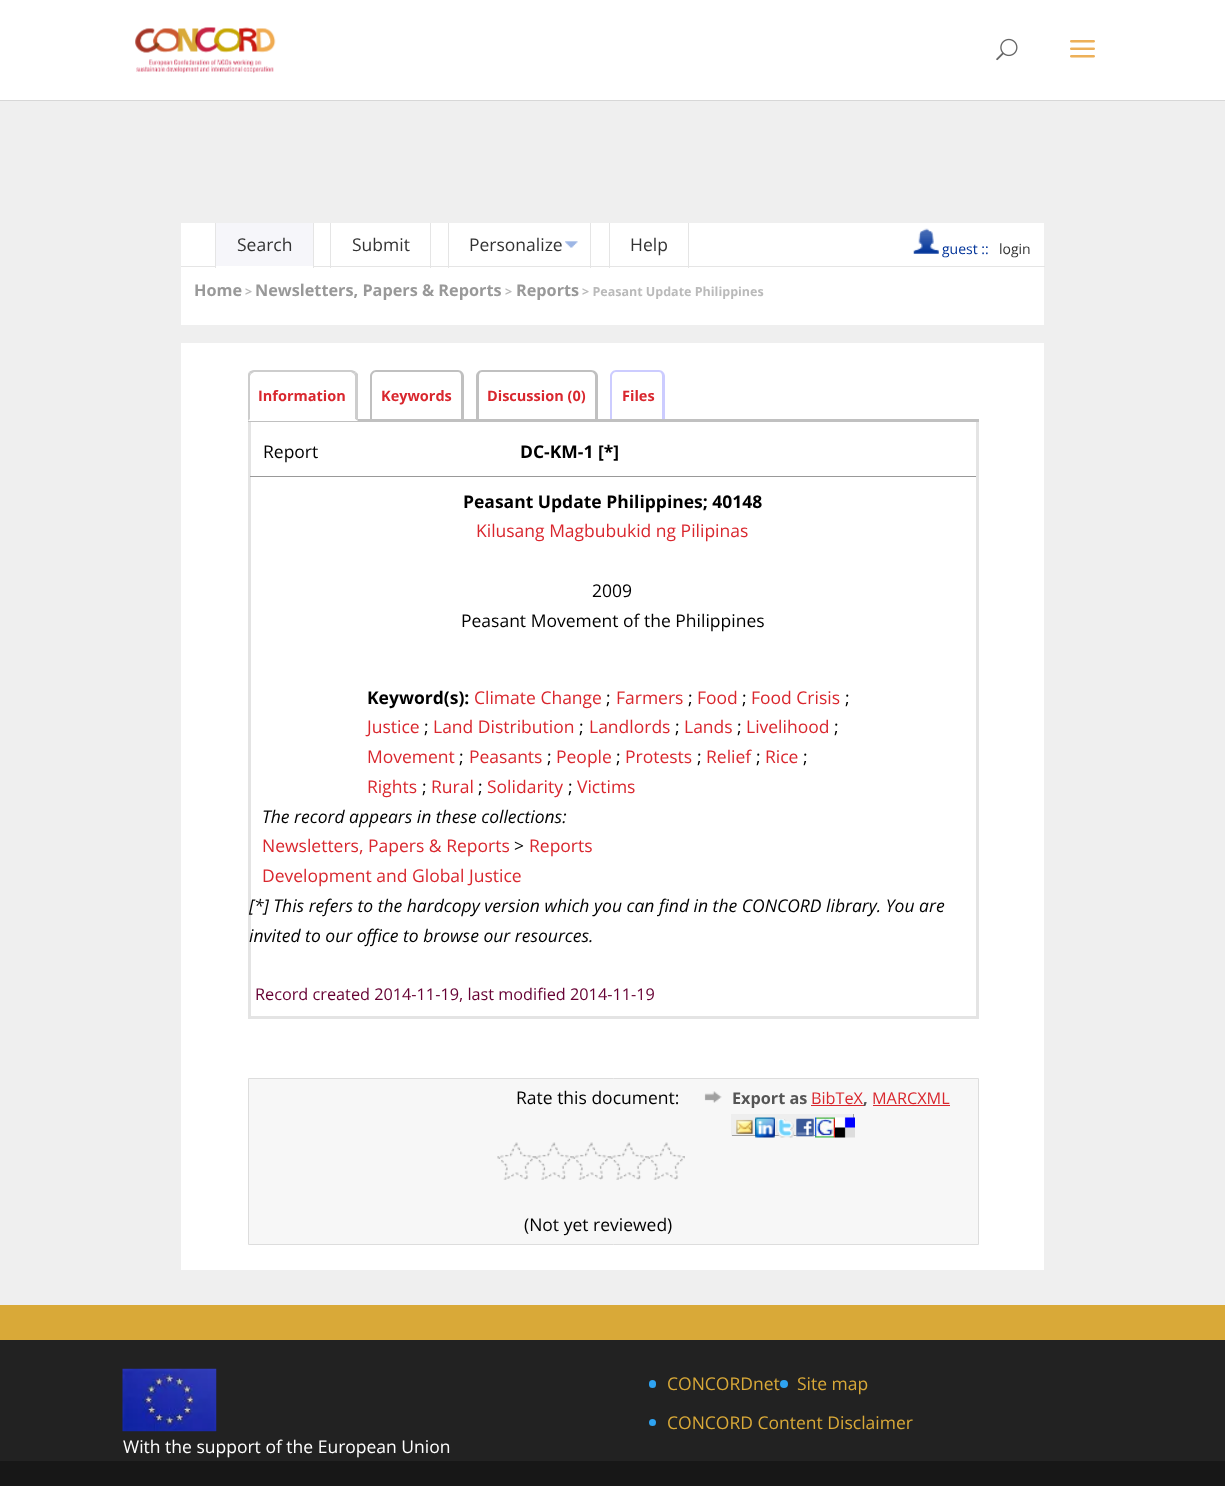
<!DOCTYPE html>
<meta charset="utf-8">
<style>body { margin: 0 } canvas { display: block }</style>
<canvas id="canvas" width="1225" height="1486"></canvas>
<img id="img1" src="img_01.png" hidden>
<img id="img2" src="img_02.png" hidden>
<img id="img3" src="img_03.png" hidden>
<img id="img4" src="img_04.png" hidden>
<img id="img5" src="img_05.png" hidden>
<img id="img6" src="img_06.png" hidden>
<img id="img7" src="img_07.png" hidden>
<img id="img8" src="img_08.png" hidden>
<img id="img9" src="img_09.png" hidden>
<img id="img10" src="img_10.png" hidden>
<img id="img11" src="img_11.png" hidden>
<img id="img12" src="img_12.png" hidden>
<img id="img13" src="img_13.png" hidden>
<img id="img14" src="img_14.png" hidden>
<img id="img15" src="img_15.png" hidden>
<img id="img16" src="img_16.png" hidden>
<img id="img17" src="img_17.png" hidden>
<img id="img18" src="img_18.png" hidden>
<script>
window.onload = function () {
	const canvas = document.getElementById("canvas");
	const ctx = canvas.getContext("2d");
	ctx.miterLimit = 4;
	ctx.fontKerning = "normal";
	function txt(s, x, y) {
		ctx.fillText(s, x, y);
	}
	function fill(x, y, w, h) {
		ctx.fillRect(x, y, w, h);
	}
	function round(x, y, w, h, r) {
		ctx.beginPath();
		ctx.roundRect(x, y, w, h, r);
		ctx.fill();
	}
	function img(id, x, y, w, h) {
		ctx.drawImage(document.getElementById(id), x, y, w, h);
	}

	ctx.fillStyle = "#EFEFEF";
	fill(0, 0, 1225, 1486);
	ctx.fillStyle = "#D7D7D7";
	fill(0, 100, 1225, 1);
	ctx.fillStyle = "#FFFFFF";
	fill(0, 0, 1225, 100);
	img("img1", 135, 27, 141, 46);
	img("img2", 996, 38, 22, 23);
	img("img3", 1070, 40, 25, 18);
	fill(181, 223, 863, 102);
	ctx.fillStyle = "#F6F6FA";
	fill(216, 223, 97, 43);
	ctx.fillStyle = "#E5E5E5";
	fill(688, 266, 357, 1);
	fill(688, 223, 1, 45);
	fill(609, 266, 80, 1);
	fill(609, 223, 1, 45);
	fill(590, 266, 20, 1);
	fill(590, 223, 1, 45);
	fill(448, 266, 143, 1);
	fill(448, 223, 1, 45);
	fill(430, 266, 19, 1);
	fill(430, 223, 1, 45);
	fill(330, 266, 101, 1);
	fill(330, 223, 1, 45);
	fill(313, 266, 18, 1);
	fill(313, 223, 1, 45);
	fill(215, 223, 1, 45);
	img("img4", 565, 241, 13, 7);
	img("img5", 913, 228, 26, 26);
	fill(181, 266, 35, 1);
	ctx.fillStyle = "#FFFFFF";
	fill(181, 343, 863, 927);
	ctx.fillStyle = "#E4E4E4";
	fill(976, 421, 3, 598);
	fill(248, 1016, 731, 3);
	fill(248, 421, 3, 598);
	ctx.fillStyle = "#C0C0C0";
	fill(248, 419, 731, 3);
	ctx.fillStyle = "#FFFFFF";
	ctx.beginPath();
	ctx.roundRect(248, 370, 110, 51, [6, 6, 0, 0]);
	ctx.fill();
	ctx.fillStyle = "#CDCDCD";
	ctx.beginPath();
	ctx.moveTo(254, 370);
	ctx.bezierCurveTo(252, 370, 250, 371, 249, 372);
	ctx.lineTo(251, 374);
	ctx.lineTo(254, 372);
	ctx.lineTo(351, 372);
	ctx.lineTo(354, 374);
	ctx.lineTo(356, 372);
	ctx.bezierCurveTo(355, 371, 353, 370, 351, 370);
	ctx.closePath();
	ctx.fill();
	ctx.beginPath();
	ctx.moveTo(358, 421);
	ctx.lineTo(355, 419);
	ctx.lineTo(355, 376);
	ctx.lineTo(354, 374);
	ctx.lineTo(356, 372);
	ctx.lineTo(358, 374);
	ctx.closePath();
	ctx.fill();
	ctx.fillStyle = "#FFFFFF";
	ctx.beginPath();
	ctx.moveTo(357, 421);
	ctx.lineTo(248, 421);
	ctx.lineTo(250, 419);
	ctx.lineTo(355, 419);
	ctx.closePath();
	ctx.fill();
	ctx.fillStyle = "#CDCDCD";
	ctx.beginPath();
	ctx.moveTo(249, 372);
	ctx.bezierCurveTo(248, 373, 248, 375, 248, 376);
	ctx.lineTo(248, 421);
	ctx.lineTo(250, 419);
	ctx.lineTo(250, 376);
	ctx.lineTo(251, 374);
	ctx.closePath();
	ctx.fill();
	ctx.fillStyle = "#C0C0C0";
	ctx.beginPath();
	ctx.moveTo(376, 370);
	ctx.lineTo(458, 370);
	ctx.bezierCurveTo(461, 370, 464, 373, 464, 376);
	ctx.lineTo(464, 419);
	ctx.lineTo(370, 419);
	ctx.lineTo(370, 376);
	ctx.bezierCurveTo(370, 373, 373, 370, 376, 370);
	ctx.closePath();
	ctx.moveTo(376, 372);
	ctx.lineTo(458, 372);
	ctx.bezierCurveTo(460, 372, 461, 374, 461, 376);
	ctx.lineTo(461, 419);
	ctx.lineTo(372, 419);
	ctx.lineTo(372, 376);
	ctx.bezierCurveTo(372, 374, 374, 372, 376, 372);
	ctx.closePath();
	ctx.fill("evenodd");
	ctx.beginPath();
	ctx.moveTo(482, 370);
	ctx.lineTo(591, 370);
	ctx.bezierCurveTo(595, 370, 598, 373, 598, 376);
	ctx.lineTo(598, 419);
	ctx.lineTo(476, 419);
	ctx.lineTo(476, 376);
	ctx.bezierCurveTo(476, 373, 479, 370, 482, 370);
	ctx.closePath();
	ctx.moveTo(482, 372);
	ctx.lineTo(591, 372);
	ctx.bezierCurveTo(593, 372, 595, 374, 595, 376);
	ctx.lineTo(595, 419);
	ctx.lineTo(479, 419);
	ctx.lineTo(479, 376);
	ctx.bezierCurveTo(479, 374, 480, 372, 482, 372);
	ctx.closePath();
	ctx.fill("evenodd");
	ctx.fillStyle = "#CCCCFF";
	ctx.beginPath();
	ctx.moveTo(616, 370);
	ctx.lineTo(659, 370);
	ctx.bezierCurveTo(662, 370, 665, 373, 665, 376);
	ctx.lineTo(665, 419);
	ctx.lineTo(610, 419);
	ctx.lineTo(610, 376);
	ctx.bezierCurveTo(610, 373, 613, 370, 616, 370);
	ctx.closePath();
	ctx.moveTo(616, 372);
	ctx.lineTo(659, 372);
	ctx.bezierCurveTo(661, 372, 662, 374, 662, 376);
	ctx.lineTo(662, 419);
	ctx.lineTo(612, 419);
	ctx.lineTo(612, 376);
	ctx.bezierCurveTo(612, 374, 614, 372, 616, 372);
	ctx.closePath();
	ctx.fill("evenodd");
	ctx.fillStyle = "#999999";
	fill(250, 476, 726, 1);
	ctx.fillStyle = "#F7F7F7";
	ctx.beginPath();
	ctx.rect(248.5, 1078.5, 730, 166);
	ctx.fill();
	ctx.strokeStyle = "#DDDDDD";
	ctx.stroke();
	img("img6", 497, 1142, 38, 38);
	img("img7", 535, 1142, 38, 38);
	img("img8", 572, 1142, 38, 38);
	img("img9", 610, 1142, 38, 38);
	img("img10", 647, 1142, 38, 38);
	img("img11", 704, 1091, 18, 12);
	ctx.fillStyle = "#D9272E";
	fill(811, 1105, 53, 1);
	fill(873, 1105, 77, 1);
	ctx.fillStyle = "#EEEEEE";
	fill(732, 1114, 121, 21);
	ctx.fillStyle = "#9F9F9F";
	fill(853, 1114, 1, 4);
	fill(731, 1135, 84, 1);
	ctx.fillStyle = "#EEEEEE";
	fill(731, 1114, 1, 22);
	img("img12", 736, 1119, 17, 15);
	img("img13", 755, 1117, 20, 21);
	img("img14", 776, 1119, 18, 19);
	img("img15", 796, 1118, 18, 19);
	img("img16", 815, 1117, 20, 21);
	img("img17", 835, 1117, 20, 21);
	ctx.fillStyle = "#D9A938";
	fill(0, 1305, 1225, 35);
	ctx.fillStyle = "#222222";
	fill(0, 1340, 1225, 121);
	ctx.fillStyle = "#2EA3F2";
	round(649, 1380, 7, 8, 3.5);
	ctx.beginPath();
	ctx.arc(784, 1384, 4, 0, Math.PI * 2);
	ctx.fill();
	ctx.beginPath();
	ctx.arc(652.5, 1422.5, 3.5, 0, Math.PI * 2);
	ctx.fill();
	img("img18", 122, 1368, 95, 64);
	ctx.fillStyle = "#171717";
	fill(0, 1461, 1225, 25);
	ctx.font = "17.5px Open Sans";
	ctx.fillStyle = "#333333";
	txt("Search", 237, 251);
	txt("Submit", 352, 251);
	txt("Personalize", 469, 251);
	txt("Help", 630, 251);
	ctx.font = "14px Open Sans";
	ctx.fillStyle = "#003399";
	txt("guest ::", 942, 254);
	ctx.fillStyle = "#333333";
	txt("login", 999, 254);
	ctx.font = "bold 16.25px Open Sans";
	ctx.fillStyle = "#999999";
	txt("Home", 194, 296);
	ctx.font = "bold 12.5px Open Sans";
	ctx.fillStyle = "#BABABA";
	txt(">", 245, 296);
	ctx.font = "bold 16.25px Open Sans";
	ctx.fillStyle = "#999999";
	txt("Newsletters, Papers & Reports", 255, 296);
	ctx.font = "bold 12.5px Open Sans";
	ctx.fillStyle = "#BABABA";
	txt(">", 505, 296);
	ctx.font = "bold 16.25px Open Sans";
	ctx.fillStyle = "#999999";
	txt("Reports", 516, 296);
	ctx.font = "bold 12.5px Open Sans";
	ctx.fillStyle = "#BABABA";
	txt("> Peasant Update Philippines", 582, 296);
	ctx.font = "bold 14.5px Open Sans";
	ctx.fillStyle = "#D9272E";
	txt("Information", 258, 401);
	txt("Keywords", 381, 401);
	txt("Discussion (0)", 487, 401);
	txt("Files", 622, 401);
	ctx.font = "17.5px Open Sans";
	ctx.fillStyle = "#000000";
	txt("Report", 263, 458);
	ctx.font = "bold 17.5px Open Sans";
	txt("DC-KM-1 [*]", 520, 458);
	txt("Peasant Update Philippines; 40148", 463, 508);
	ctx.font = "17.5px Open Sans";
	ctx.fillStyle = "#D9272E";
	txt("Kilusang Magbubukid ng Pilipinas", 476, 537);
	ctx.fillStyle = "#000000";
	txt("2009", 592, 597);
	txt("Peasant Movement of the Philippines", 461, 627);
	ctx.font = "bold 17.5px Open Sans";
	txt("Keyword(s):", 367, 704);
	ctx.font = "17.5px Open Sans";
	ctx.fillStyle = "#D9272E";
	txt("Climate Change", 474, 704);
	ctx.fillStyle = "#000000";
	txt(";", 606, 704);
	ctx.fillStyle = "#D9272E";
	txt("Farmers", 616, 704);
	ctx.fillStyle = "#000000";
	txt(";", 688, 704);
	ctx.fillStyle = "#D9272E";
	txt("Food", 697, 704);
	ctx.fillStyle = "#000000";
	txt(";", 742, 704);
	ctx.fillStyle = "#D9272E";
	txt("Food Crisis", 751, 704);
	ctx.fillStyle = "#000000";
	txt(";", 845, 704);
	ctx.fillStyle = "#D9272E";
	txt("Justice", 367, 733);
	ctx.fillStyle = "#000000";
	txt(";", 424, 733);
	ctx.fillStyle = "#D9272E";
	txt("Land Distribution", 433, 733);
	ctx.fillStyle = "#000000";
	txt(";", 579, 733);
	ctx.fillStyle = "#D9272E";
	txt("Landlords", 589, 733);
	ctx.fillStyle = "#000000";
	txt(";", 675, 733);
	ctx.fillStyle = "#D9272E";
	txt("Lands", 684, 733);
	ctx.fillStyle = "#000000";
	txt(";", 737, 733);
	ctx.fillStyle = "#D9272E";
	txt("Livelihood", 746, 733);
	ctx.fillStyle = "#000000";
	txt(";", 834, 733);
	ctx.fillStyle = "#D9272E";
	txt("Movement", 367, 763);
	ctx.fillStyle = "#000000";
	txt(";", 459, 763);
	ctx.fillStyle = "#D9272E";
	txt("Peasants", 469, 763);
	ctx.fillStyle = "#000000";
	txt(";", 547, 763);
	ctx.fillStyle = "#D9272E";
	txt("People", 556, 763);
	ctx.fillStyle = "#000000";
	txt(";", 616, 763);
	ctx.fillStyle = "#D9272E";
	txt("Protests", 625, 763);
	ctx.fillStyle = "#000000";
	txt(";", 697, 763);
	ctx.fillStyle = "#D9272E";
	txt("Relief", 706, 763);
	ctx.fillStyle = "#000000";
	txt(";", 756, 763);
	ctx.fillStyle = "#D9272E";
	txt("Rice", 765, 763);
	ctx.fillStyle = "#000000";
	txt(";", 803, 763);
	ctx.fillStyle = "#D9272E";
	txt("Rights", 367, 793);
	ctx.fillStyle = "#000000";
	txt(";", 422, 793);
	ctx.fillStyle = "#D9272E";
	txt("Rural", 431, 793);
	ctx.fillStyle = "#000000";
	txt(";", 478, 793);
	ctx.fillStyle = "#D9272E";
	txt("Solidarity", 487, 793);
	ctx.fillStyle = "#000000";
	txt(";", 568, 793);
	ctx.fillStyle = "#D9272E";
	txt("Victims", 577, 793);
	ctx.font = "italic 17.5px Open Sans";
	ctx.fillStyle = "#000000";
	txt("The record appears in these collections:", 262, 823);
	ctx.font = "17.5px Open Sans";
	ctx.fillStyle = "#D9272E";
	txt("Newsletters, Papers & Reports", 262, 852);
	ctx.fillStyle = "#000000";
	txt(">", 514, 852);
	ctx.fillStyle = "#D9272E";
	txt("Reports", 529, 852);
	txt("Development and Global Justice", 262, 882);
	ctx.font = "italic 17.5px Open Sans";
	ctx.fillStyle = "#000000";
	txt("[*] This refers to the hardcopy version which you can find in the CONCORD library. You are", 249, 912);
	txt("invited to our office to browse our resources.", 249, 942);
	ctx.font = "16.25px Open Sans";
	ctx.fillStyle = "#660033";
	txt("Record created 2014-11-19, last modified 2014-11-19", 255, 1000);
	ctx.font = "17.5px Open Sans";
	ctx.fillStyle = "#000000";
	txt("Rate this document:", 516, 1104);
	txt("(Not yet reviewed)", 524, 1231);
	ctx.font = "bold 16.25px Open Sans";
	ctx.fillStyle = "#555555";
	txt("Export as", 732, 1104);
	ctx.font = "16.25px Open Sans";
	ctx.fillStyle = "#D9272E";
	txt("BibTeX", 811, 1104);
	ctx.font = "bold 16.25px Open Sans";
	ctx.fillStyle = "#555555";
	txt(",", 863, 1104);
	ctx.font = "16.25px Open Sans";
	ctx.fillStyle = "#D9272E";
	txt("MARCXML", 872, 1104);
	ctx.font = "17.5px Open Sans";
	ctx.fillStyle = "#D9A938";
	txt("CONCORDnet", 667, 1390);
	txt("Site map", 797, 1390);
	txt("CONCORD Content Disclaimer", 667, 1429);
	ctx.fillStyle = "#FFFFFF";
	txt("With the support of the European Union", 123, 1453);
};
</script>
